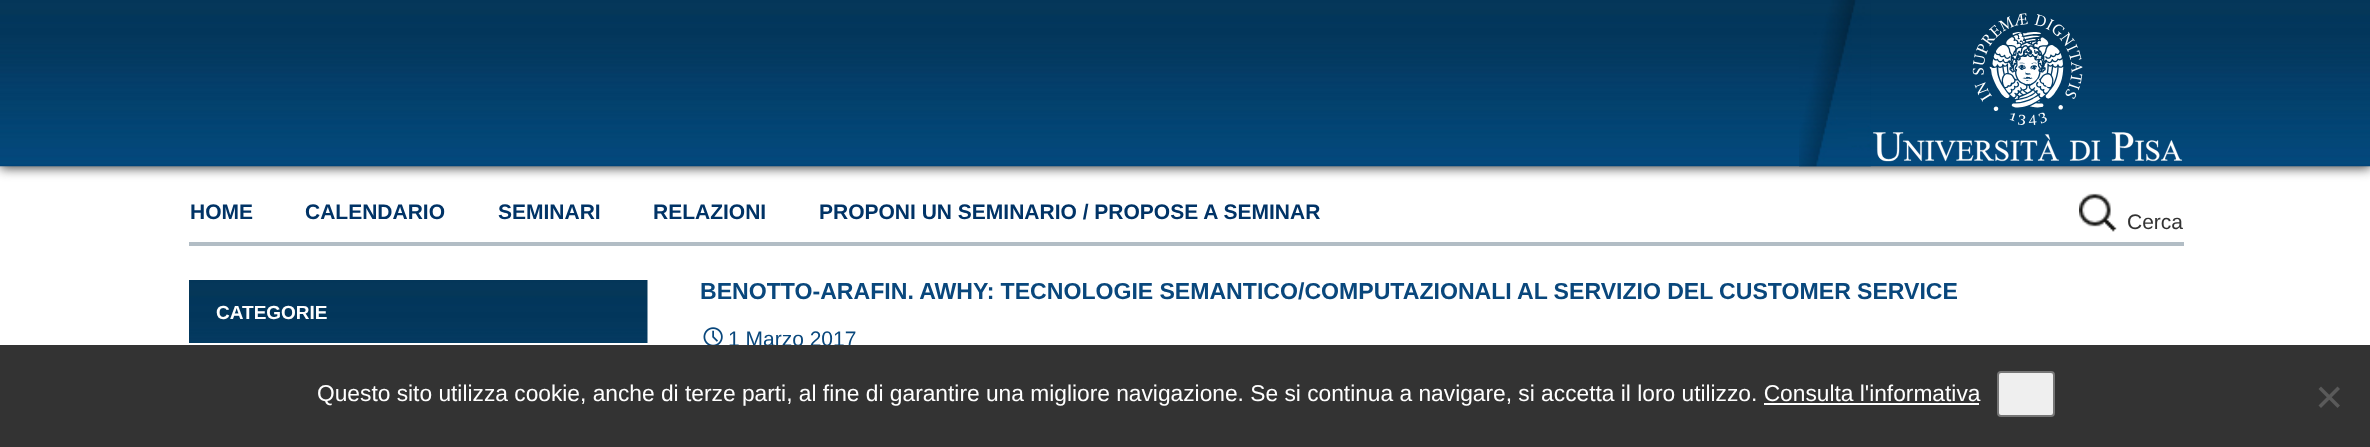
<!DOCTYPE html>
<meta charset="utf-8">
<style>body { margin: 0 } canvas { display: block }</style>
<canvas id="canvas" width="2370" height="447"></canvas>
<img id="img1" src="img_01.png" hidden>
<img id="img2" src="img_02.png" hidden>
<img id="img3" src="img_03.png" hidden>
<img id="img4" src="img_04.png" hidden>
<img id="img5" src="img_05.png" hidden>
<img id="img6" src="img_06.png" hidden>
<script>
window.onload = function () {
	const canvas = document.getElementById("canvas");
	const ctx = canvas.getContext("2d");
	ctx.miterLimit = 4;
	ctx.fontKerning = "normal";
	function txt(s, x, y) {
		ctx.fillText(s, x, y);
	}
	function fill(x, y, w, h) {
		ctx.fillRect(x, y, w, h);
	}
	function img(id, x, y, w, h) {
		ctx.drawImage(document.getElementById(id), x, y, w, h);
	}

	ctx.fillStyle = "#FFFFFF";
	fill(0, 0, 2370, 447);
	ctx.fillStyle = "#444444";
	ctx.filter = "blur(6px)";
	ctx.beginPath();
	ctx.rect(0, 2, 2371, 166);
	ctx.fill();
	ctx.filter = "none";
	img("img1", 0, 0, 2370, 167);
	img("img2", 1799, 0, 72, 167);
	img("img3", 1873, 13, 310, 149);
	ctx.fillStyle = "#B2BDC5";
	fill(189, 242, 1995, 4);
	img("img4", 2079, 193, 38, 39);
	img("img5", 189, 280, 459, 63);
	img("img6", 703, 327, 20, 18);
	ctx.font = "bold 21px Liberation Sans";
	ctx.fillStyle = "#003366";
	txt("HOME", 190, 219);
	txt("CALENDARIO", 305, 219);
	txt("SEMINARI", 498, 219);
	txt("RELAZIONI", 653, 219);
	txt("PROPONI UN SEMINARIO / PROPOSE A SEMINAR", 819, 219);
	ctx.font = "21px Liberation Sans";
	ctx.fillStyle = "#333333";
	txt("Cerca", 2127, 229);
	ctx.font = "bold 19px Liberation Sans";
	ctx.fillStyle = "#FFFFFF";
	txt("CATEGORIE", 216, 319);
	ctx.wordSpacing = "-0.25px";
	ctx.font = "bold 23.1px Liberation Sans";
	ctx.fillStyle = "#09477C";
	txt("BENOTTO-ARAFIN. AWHY: TECNOLOGIE SEMANTICO/COMPUTAZIONALI AL SERVIZIO DEL CUSTOMER SERVICE", 700, 299);
	ctx.wordSpacing = "0px";
	ctx.font = "21px Liberation Sans";
	txt("1 Marzo 2017", 728, 346);
	ctx.fillStyle = "#333333";
	fill(0, 345, 2370, 102);
	ctx.font = "22.75px Liberation Sans";
	ctx.fillStyle = "#FFFFFF";
	txt("Questo sito utilizza cookie, anche di terze parti, al fine di garantire una migliore navigazione. Se si continua a navigare, si accetta il loro utilizzo. Consulta l'informativa", 317, 401);
	fill(1764, 403, 215, 2);
	ctx.fillStyle = "#EFEFEF";
	ctx.beginPath();
	ctx.roundRect(1998, 372, 56, 44, 3);
	ctx.fill();
	ctx.strokeStyle = "#767676";
	ctx.lineWidth = 2;
	ctx.stroke();
	ctx.fillStyle = "#5A5A5A";
	ctx.beginPath();
	ctx.moveTo(2337.5, 386.5);
	ctx.lineTo(2340, 389);
	ctx.lineTo(2321, 408);
	ctx.lineTo(2318.5, 405.5);
	ctx.closePath();
	ctx.fill();
	ctx.beginPath();
	ctx.moveTo(2318.5, 389);
	ctx.lineTo(2321, 386.5);
	ctx.lineTo(2340, 405.5);
	ctx.lineTo(2337.5, 408);
	ctx.closePath();
	ctx.fill();
};
</script>
